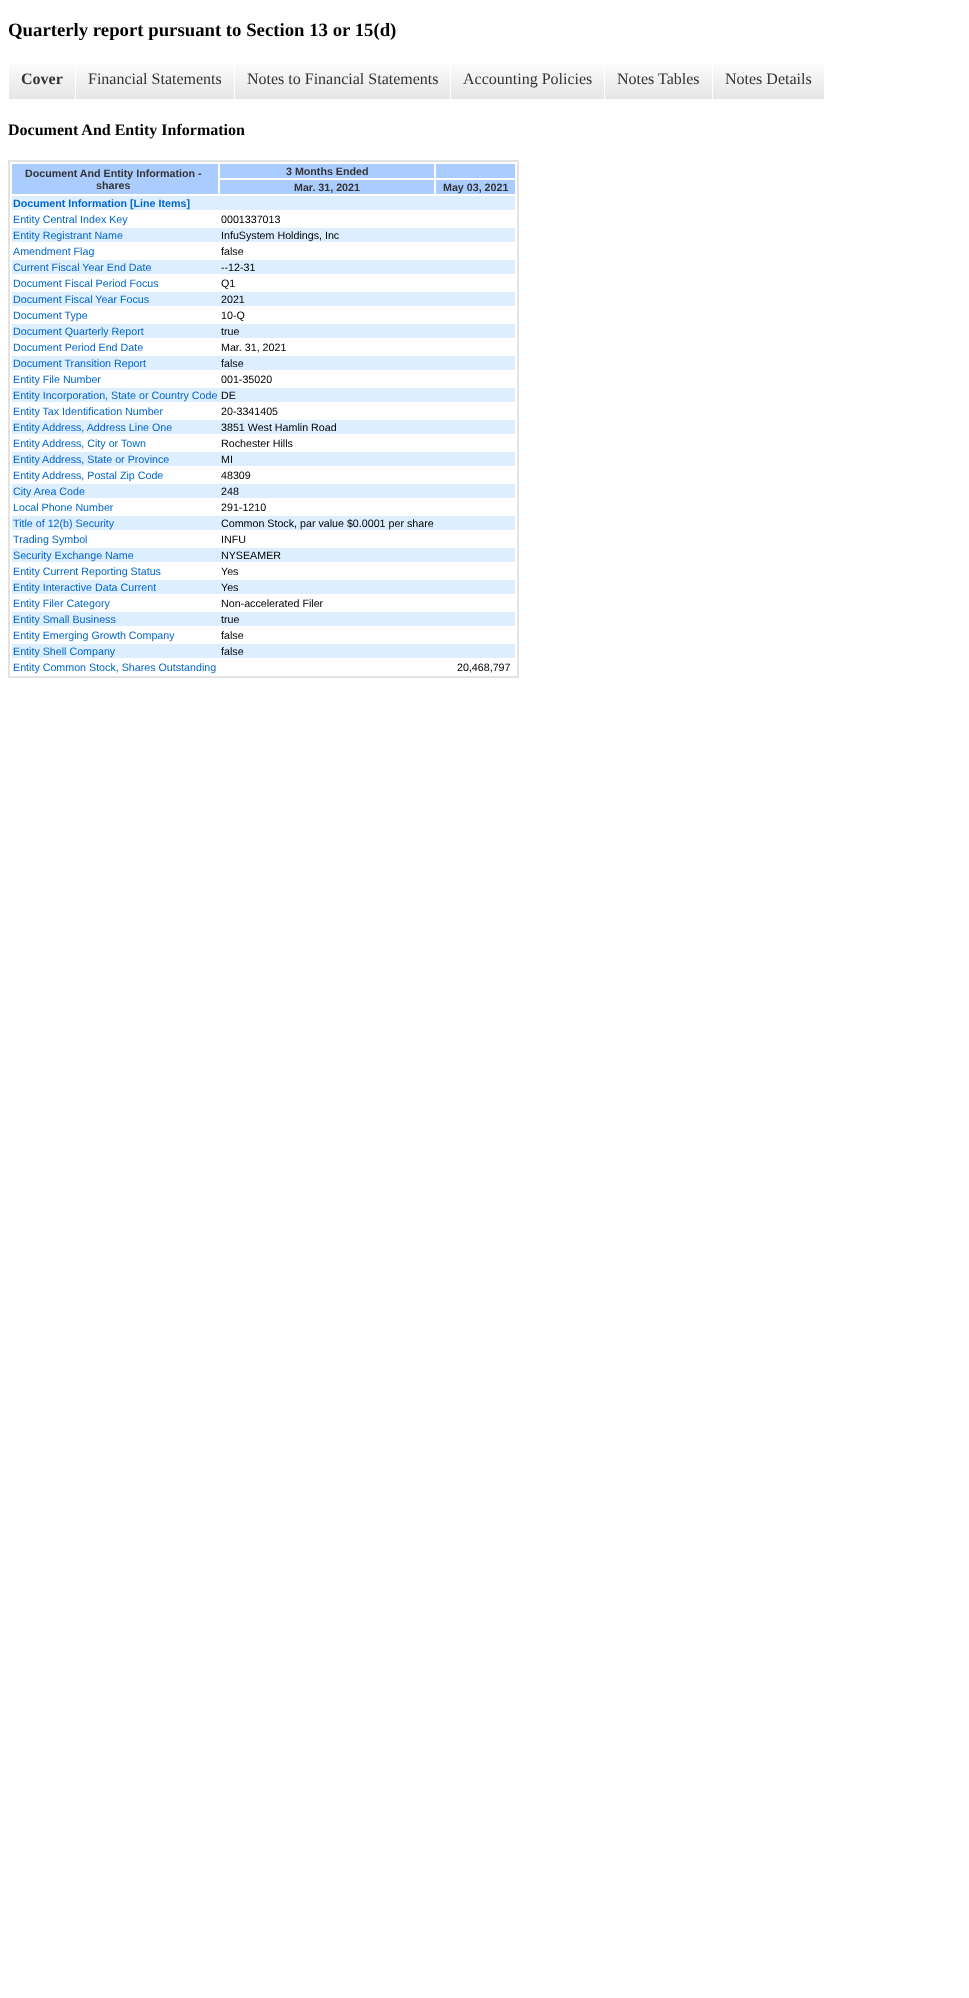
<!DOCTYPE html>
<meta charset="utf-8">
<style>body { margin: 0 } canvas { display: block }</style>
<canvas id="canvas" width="969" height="1998"></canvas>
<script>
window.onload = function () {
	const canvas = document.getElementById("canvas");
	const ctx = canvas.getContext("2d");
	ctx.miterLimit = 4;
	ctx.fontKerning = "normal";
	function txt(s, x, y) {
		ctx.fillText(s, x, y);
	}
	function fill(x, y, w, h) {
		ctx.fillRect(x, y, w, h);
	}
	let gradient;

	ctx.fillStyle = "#FFFFFF";
	fill(0, 0, 969, 1998);
	gradient = ctx.createLinearGradient(42, 59, 42, 99);
	gradient.addColorStop(0, "#FFFFFF");
	gradient.addColorStop(1, "#E5E5E5");
	ctx.fillStyle = gradient;
	fill(9, 63, 66, 36);
	gradient = ctx.createLinearGradient(155, 59, 155, 99);
	gradient.addColorStop(0, "#FFFFFF");
	gradient.addColorStop(1, "#E5E5E5");
	ctx.fillStyle = gradient;
	fill(76, 63, 158, 36);
	gradient = ctx.createLinearGradient(343, 59, 343, 99);
	gradient.addColorStop(0, "#FFFFFF");
	gradient.addColorStop(1, "#E5E5E5");
	ctx.fillStyle = gradient;
	fill(235, 63, 215, 36);
	gradient = ctx.createLinearGradient(528, 59, 528, 99);
	gradient.addColorStop(0, "#FFFFFF");
	gradient.addColorStop(1, "#E5E5E5");
	ctx.fillStyle = gradient;
	fill(451, 63, 153, 36);
	gradient = ctx.createLinearGradient(659, 59, 659, 99);
	gradient.addColorStop(0, "#FFFFFF");
	gradient.addColorStop(1, "#E5E5E5");
	ctx.fillStyle = gradient;
	fill(605, 63, 107, 36);
	gradient = ctx.createLinearGradient(769, 59, 769, 99);
	gradient.addColorStop(0, "#FFFFFF");
	gradient.addColorStop(1, "#E5E5E5");
	ctx.fillStyle = gradient;
	fill(713, 63, 111, 36);
	ctx.strokeStyle = "#E3E3E3";
	ctx.lineWidth = 2;
	ctx.strokeRect(9, 161, 509, 516);
	ctx.fillStyle = "#AACCFF";
	fill(12, 164, 206, 30);
	fill(220, 164, 214, 14);
	fill(436, 164, 79, 14);
	fill(220, 180, 214, 14);
	fill(436, 180, 79, 14);
	ctx.fillStyle = "#DDEEFF";
	fill(12, 196, 503, 14);
	fill(12, 228, 503, 14);
	fill(12, 260, 503, 14);
	fill(12, 292, 503, 14);
	fill(12, 324, 503, 14);
	fill(12, 356, 503, 14);
	fill(12, 388, 503, 14);
	fill(12, 420, 503, 14);
	fill(12, 452, 503, 14);
	fill(12, 484, 503, 14);
	fill(12, 516, 503, 14);
	fill(12, 548, 503, 14);
	fill(12, 580, 503, 14);
	fill(12, 612, 503, 14);
	fill(12, 644, 503, 14);
	ctx.font = "bold 18.75px Liberation Serif";
	ctx.fillStyle = "#000000";
	txt("Quarterly report pursuant to Section 13 or 15(d)", 8, 36);
	ctx.font = "bold 16px Liberation Serif";
	ctx.fillStyle = "#333333";
	txt("Cover", 21, 84);
	ctx.font = "16px Liberation Serif";
	txt("Financial Statements", 88, 84);
	txt("Notes to Financial Statements", 247, 84);
	txt("Accounting Policies", 463, 84);
	txt("Notes Tables", 617, 84);
	txt("Notes Details", 725, 84);
	ctx.font = "bold 16px Liberation Serif";
	ctx.fillStyle = "#000000";
	txt("Document And Entity Information", 8, 135);
	ctx.font = "bold 10.7px Liberation Sans";
	ctx.fillStyle = "#333333";
	txt("Document And Entity Information -", 25, 177);
	txt("shares", 96, 189);
	txt("3 Months Ended", 286, 175);
	txt("Mar. 31, 2021", 294, 191);
	txt("May 03, 2021", 443, 191);
	ctx.fillStyle = "#0066CC";
	txt("Document Information [Line Items]", 13, 207);
	ctx.font = "10.7px Liberation Sans";
	txt("Entity Central Index Key", 13, 223);
	ctx.fillStyle = "#000000";
	txt("0001337013", 221, 223);
	ctx.fillStyle = "#0066CC";
	txt("Entity Registrant Name", 13, 239);
	ctx.fillStyle = "#000000";
	txt("InfuSystem Holdings, Inc", 221, 239);
	ctx.fillStyle = "#0066CC";
	txt("Amendment Flag", 13, 255);
	ctx.fillStyle = "#000000";
	txt("false", 221, 255);
	ctx.fillStyle = "#0066CC";
	txt("Current Fiscal Year End Date", 13, 271);
	ctx.fillStyle = "#000000";
	txt("--12-31", 221, 271);
	ctx.fillStyle = "#0066CC";
	txt("Document Fiscal Period Focus", 13, 287);
	ctx.fillStyle = "#000000";
	txt("Q1", 221, 287);
	ctx.fillStyle = "#0066CC";
	txt("Document Fiscal Year Focus", 13, 303);
	ctx.fillStyle = "#000000";
	txt("2021", 221, 303);
	ctx.fillStyle = "#0066CC";
	txt("Document Type", 13, 319);
	ctx.fillStyle = "#000000";
	txt("10-Q", 221, 319);
	ctx.fillStyle = "#0066CC";
	txt("Document Quarterly Report", 13, 335);
	ctx.fillStyle = "#000000";
	txt("true", 221, 335);
	ctx.fillStyle = "#0066CC";
	txt("Document Period End Date", 13, 351);
	ctx.fillStyle = "#000000";
	txt("Mar. 31, 2021", 221, 351);
	ctx.fillStyle = "#0066CC";
	txt("Document Transition Report", 13, 367);
	ctx.fillStyle = "#000000";
	txt("false", 221, 367);
	ctx.fillStyle = "#0066CC";
	txt("Entity File Number", 13, 383);
	ctx.fillStyle = "#000000";
	txt("001-35020", 221, 383);
	ctx.fillStyle = "#0066CC";
	txt("Entity Incorporation, State or Country Code", 13, 399);
	ctx.fillStyle = "#000000";
	txt("DE", 221, 399);
	ctx.fillStyle = "#0066CC";
	txt("Entity Tax Identification Number", 13, 415);
	ctx.fillStyle = "#000000";
	txt("20-3341405", 221, 415);
	ctx.fillStyle = "#0066CC";
	txt("Entity Address, Address Line One", 13, 431);
	ctx.fillStyle = "#000000";
	txt("3851 West Hamlin Road", 221, 431);
	ctx.fillStyle = "#0066CC";
	txt("Entity Address, City or Town", 13, 447);
	ctx.fillStyle = "#000000";
	txt("Rochester Hills", 221, 447);
	ctx.fillStyle = "#0066CC";
	txt("Entity Address, State or Province", 13, 463);
	ctx.fillStyle = "#000000";
	txt("MI", 221, 463);
	ctx.fillStyle = "#0066CC";
	txt("Entity Address, Postal Zip Code", 13, 479);
	ctx.fillStyle = "#000000";
	txt("48309", 221, 479);
	ctx.fillStyle = "#0066CC";
	txt("City Area Code", 13, 495);
	ctx.fillStyle = "#000000";
	txt("248", 221, 495);
	ctx.fillStyle = "#0066CC";
	txt("Local Phone Number", 13, 511);
	ctx.fillStyle = "#000000";
	txt("291-1210", 221, 511);
	ctx.fillStyle = "#0066CC";
	txt("Title of 12(b) Security", 13, 527);
	ctx.fillStyle = "#000000";
	txt("Common Stock, par value $0.0001 per share", 221, 527);
	ctx.fillStyle = "#0066CC";
	txt("Trading Symbol", 13, 543);
	ctx.fillStyle = "#000000";
	txt("INFU", 221, 543);
	ctx.fillStyle = "#0066CC";
	txt("Security Exchange Name", 13, 559);
	ctx.fillStyle = "#000000";
	txt("NYSEAMER", 221, 559);
	ctx.fillStyle = "#0066CC";
	txt("Entity Current Reporting Status", 13, 575);
	ctx.fillStyle = "#000000";
	txt("Yes", 221, 575);
	ctx.fillStyle = "#0066CC";
	txt("Entity Interactive Data Current", 13, 591);
	ctx.fillStyle = "#000000";
	txt("Yes", 221, 591);
	ctx.fillStyle = "#0066CC";
	txt("Entity Filer Category", 13, 607);
	ctx.fillStyle = "#000000";
	txt("Non-accelerated Filer", 221, 607);
	ctx.fillStyle = "#0066CC";
	txt("Entity Small Business", 13, 623);
	ctx.fillStyle = "#000000";
	txt("true", 221, 623);
	ctx.fillStyle = "#0066CC";
	txt("Entity Emerging Growth Company", 13, 639);
	ctx.fillStyle = "#000000";
	txt("false", 221, 639);
	ctx.fillStyle = "#0066CC";
	txt("Entity Shell Company", 13, 655);
	ctx.fillStyle = "#000000";
	txt("false", 221, 655);
	ctx.fillStyle = "#0066CC";
	txt("Entity Common Stock, Shares Outstanding", 13, 671);
	ctx.fillStyle = "#000000";
	txt("20,468,797", 457, 671);
};
</script>
